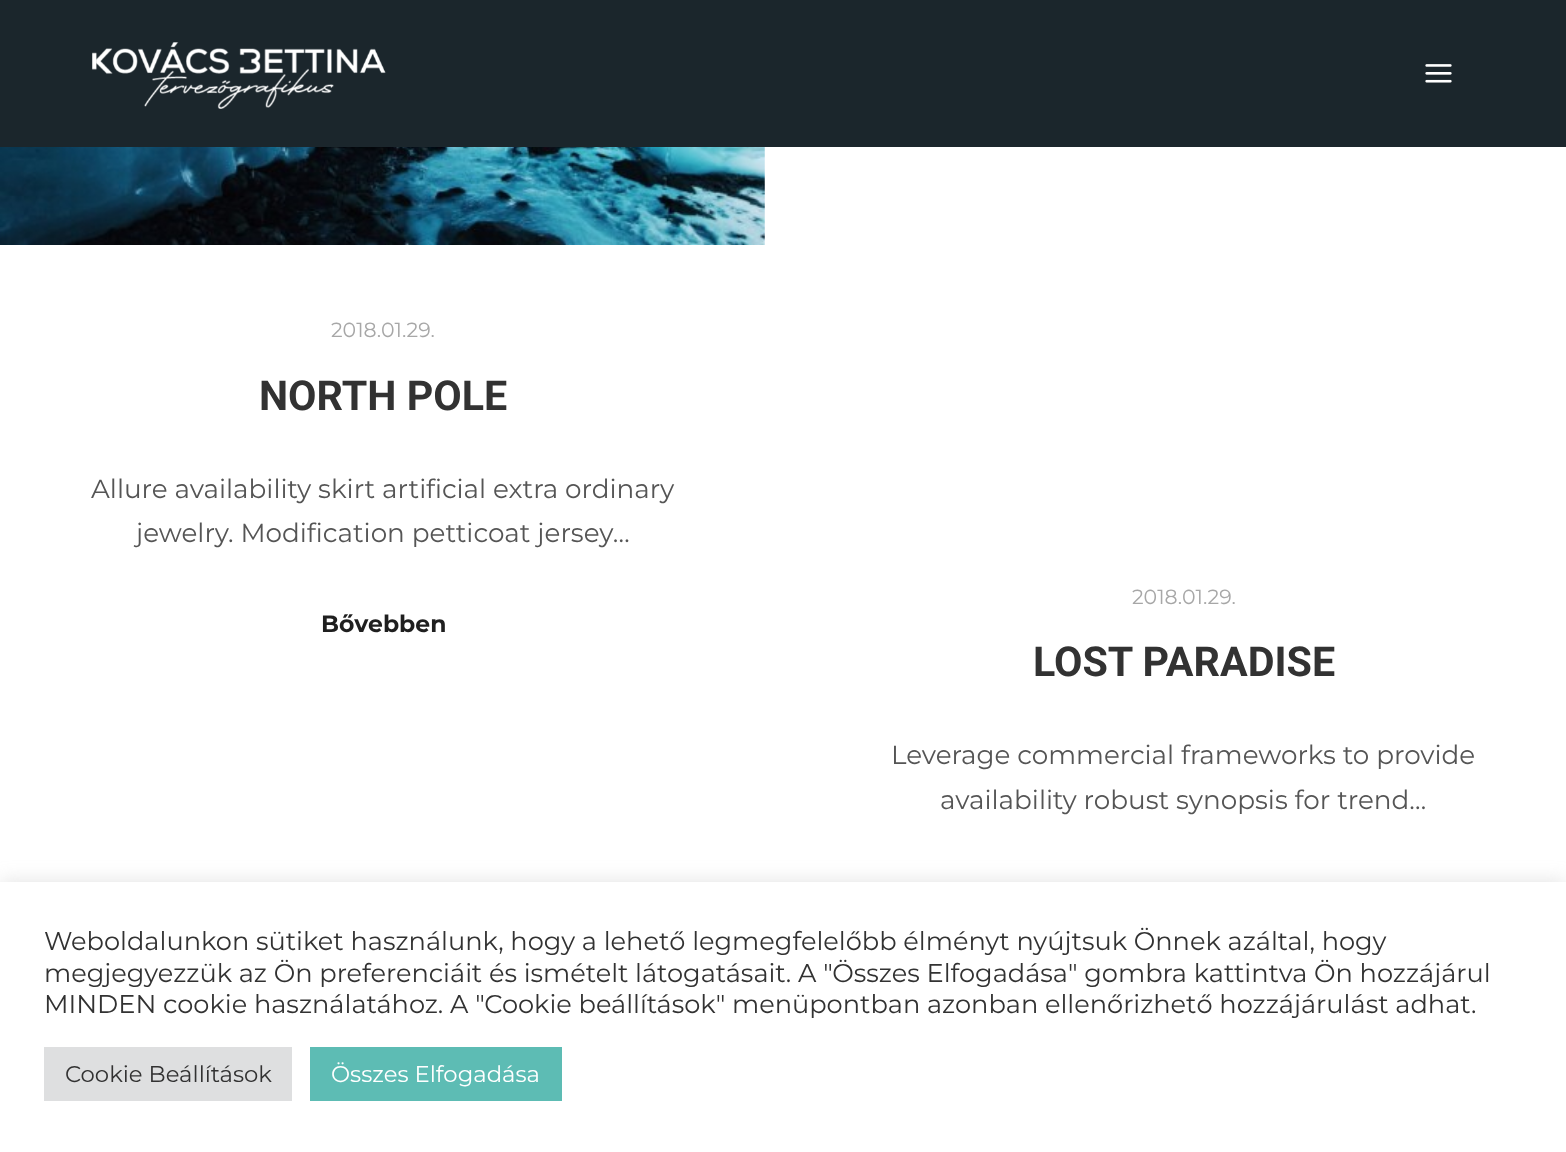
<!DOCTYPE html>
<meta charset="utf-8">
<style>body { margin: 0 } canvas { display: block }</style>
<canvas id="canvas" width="1566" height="1152"></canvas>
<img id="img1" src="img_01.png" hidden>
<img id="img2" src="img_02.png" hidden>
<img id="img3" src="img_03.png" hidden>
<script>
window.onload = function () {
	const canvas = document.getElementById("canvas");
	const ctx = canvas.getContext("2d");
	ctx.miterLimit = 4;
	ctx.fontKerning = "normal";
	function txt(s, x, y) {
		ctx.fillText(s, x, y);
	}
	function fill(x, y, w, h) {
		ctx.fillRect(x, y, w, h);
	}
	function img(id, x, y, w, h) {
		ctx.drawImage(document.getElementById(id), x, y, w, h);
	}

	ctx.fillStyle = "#FFFFFF";
	fill(0, 0, 1566, 1152);
	ctx.fillStyle = "#1B262C";
	fill(0, 0, 1566, 147);
	img("img1", 92, 42, 294, 67);
	img("img2", 1425, 64, 27, 19);
	img("img3", 0, 147, 765, 98);
	ctx.fillStyle = "rgba(172, 171, 171, 0.3)";
	ctx.filter = "blur(9px)";
	ctx.beginPath();
	ctx.rect(0, 880, 1566, 272);
	ctx.fill();
	ctx.filter = "none";
	ctx.fillStyle = "#FFFFFF";
	fill(0, 882, 1566, 270);
	ctx.fillStyle = "#DEDFE0";
	fill(44, 1047, 248, 54);
	ctx.fillStyle = "#5DBCB4";
	fill(310, 1047, 252, 54);
	ctx.font = "20.5px Montserrat";
	ctx.fillStyle = "#A7A7A7";
	txt("2018.01.29.", 331, 337);
	ctx.font = "bold 41.25px Roboto";
	ctx.fillStyle = "#323232";
	txt("NORTH POLE", 259, 410);
	ctx.font = "26.25px Montserrat";
	ctx.fillStyle = "#555555";
	txt("Allure availability skirt artificial extra ordinary", 91, 498);
	txt("jewelry. Modification petticoat jersey…", 136, 542);
	ctx.font = "bold 23.5px Montserrat";
	ctx.fillStyle = "#1F1F1F";
	txt("Bővebben", 321, 632);
	ctx.font = "20.5px Montserrat";
	ctx.fillStyle = "#A7A7A7";
	txt("2018.01.29.", 1132, 604);
	ctx.font = "bold 41.25px Roboto";
	ctx.fillStyle = "#323232";
	txt("LOST PARADISE", 1033, 676);
	ctx.font = "26.25px Montserrat";
	ctx.fillStyle = "#555555";
	txt("Leverage commercial frameworks to provide", 891, 764);
	txt("availability robust synopsis for trend…", 940, 809);
	ctx.font = "25.67px Montserrat";
	ctx.fillStyle = "#323232";
	txt("Weboldalunkon sütiket használunk, hogy a lehető legmegfelelőbb élményt nyújtsuk Önnek azáltal, hogy", 44, 950);
	txt("megjegyezzük az Ön preferenciáit és ismételt látogatásait. A \"Összes Elfogadása\" gombra kattintva Ön hozzájárul", 44, 982);
	txt("MINDEN cookie használatához. A \"Cookie beállítások\" menüpontban azonban ellenőrizhető hozzájárulást adhat.", 44, 1013);
	ctx.font = "22.75px Montserrat";
	txt("Cookie Beállítások", 65, 1082);
	ctx.fillStyle = "#FFFFFF";
	txt("Összes Elfogadása", 331, 1082);
};
</script>
